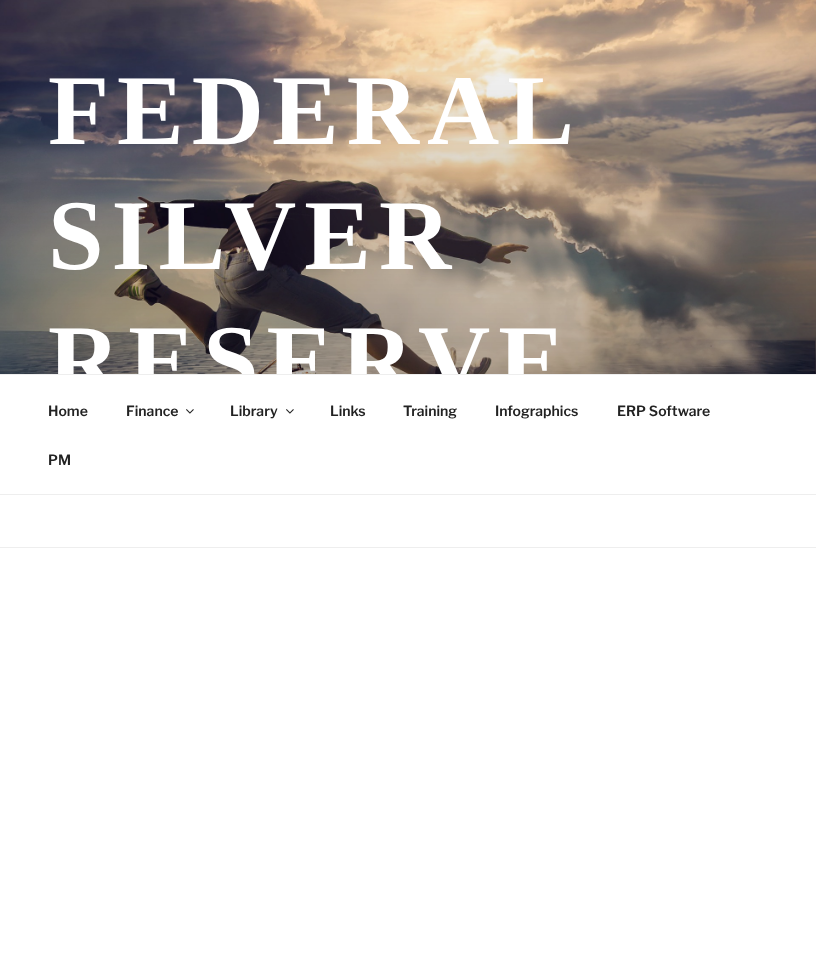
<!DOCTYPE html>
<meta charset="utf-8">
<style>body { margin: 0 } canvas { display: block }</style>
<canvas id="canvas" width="816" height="965"></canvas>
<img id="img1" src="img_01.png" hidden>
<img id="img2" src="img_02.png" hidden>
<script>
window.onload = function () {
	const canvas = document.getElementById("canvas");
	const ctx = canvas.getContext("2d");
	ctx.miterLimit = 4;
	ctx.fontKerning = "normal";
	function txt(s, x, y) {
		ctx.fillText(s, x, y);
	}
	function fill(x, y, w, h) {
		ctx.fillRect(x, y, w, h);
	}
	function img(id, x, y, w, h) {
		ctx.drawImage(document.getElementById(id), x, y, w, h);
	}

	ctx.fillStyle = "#FFFFFF";
	fill(0, 0, 816, 965);
	img("img1", 0, 0, 816, 374);
	ctx.fillStyle = "#EEEEEE";
	fill(0, 494, 816, 1);
	img("img2", 186, 409, 8, 5);
	img("img2", 286, 409, 8, 5);
	fill(0, 547, 816, 1);
	ctx.letterSpacing = "8px";
	ctx.font = "bold 100px Liberation Serif";
	ctx.fillStyle = "#FFFFFF";
	txt("FEDERAL", 48, 144);
	txt("SILVER", 48, 269);
	txt("RESERVE", 48, 394);
	ctx.fillStyle = "#EEEEEE";
	fill(0, 374, 816, 1);
	ctx.letterSpacing = "0px";
	ctx.font = "100 14px Libre Franklin";
	ctx.fillStyle = "#222222";
	txt("Home", 48, 416);
	txt("Finance", 126, 416);
	txt("Library", 230, 416);
	txt("Links", 330, 416);
	txt("Training", 403, 416);
	txt("Infographics", 495, 416);
	txt("ERP Software", 617, 416);
	txt("PM", 48, 465);
};
</script>
